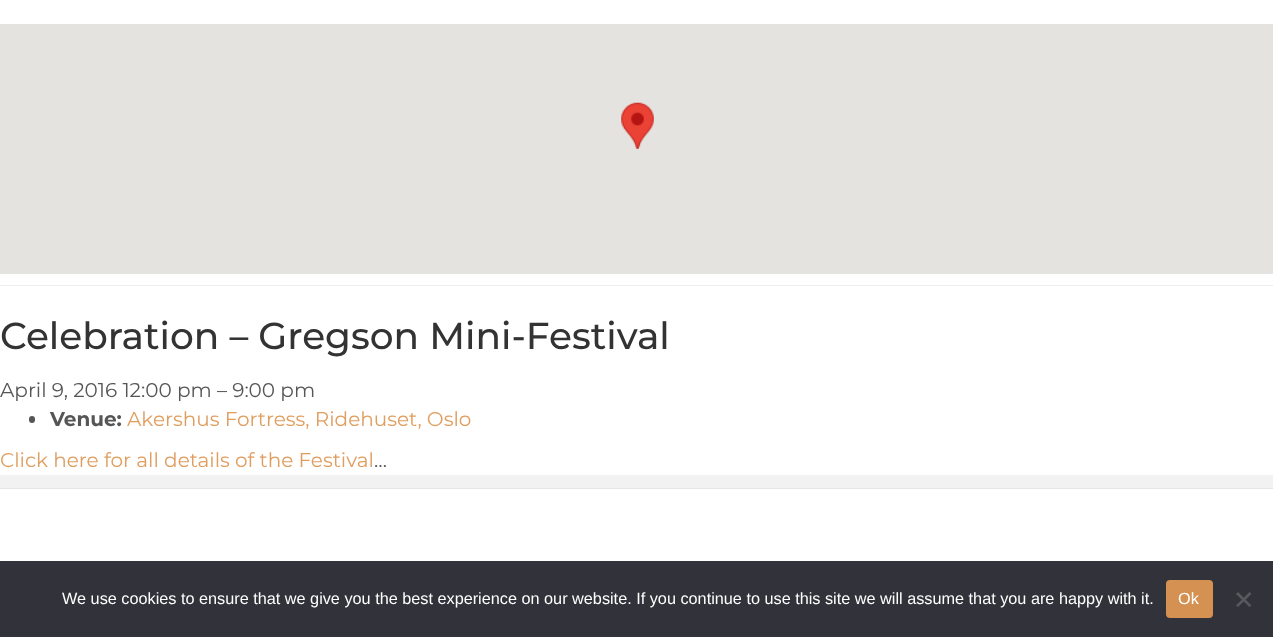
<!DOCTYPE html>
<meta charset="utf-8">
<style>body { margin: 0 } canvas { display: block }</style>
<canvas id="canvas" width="1273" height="637"></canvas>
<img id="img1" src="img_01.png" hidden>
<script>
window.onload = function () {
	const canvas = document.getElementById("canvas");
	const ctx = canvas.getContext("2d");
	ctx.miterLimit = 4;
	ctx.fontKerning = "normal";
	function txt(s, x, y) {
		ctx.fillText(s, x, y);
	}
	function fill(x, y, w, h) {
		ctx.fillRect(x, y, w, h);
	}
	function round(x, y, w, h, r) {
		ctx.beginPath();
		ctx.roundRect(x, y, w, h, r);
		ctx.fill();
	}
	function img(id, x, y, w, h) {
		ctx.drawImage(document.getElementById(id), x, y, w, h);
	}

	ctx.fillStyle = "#F2F2F2";
	fill(0, 0, 1273, 637);
	ctx.fillStyle = "#FFFFFF";
	fill(0, 0, 1273, 475);
	ctx.fillStyle = "#EEEEEE";
	fill(0, 285, 1273, 1);
	ctx.fillStyle = "#E5E3DF";
	fill(0, 24, 1273, 250);
	img("img1", 621, 102, 33, 47);
	ctx.fillStyle = "#565656";
	round(29, 416, 6, 7, 3);
	ctx.fillStyle = "#FFFFFF";
	fill(0, 489, 1273, 72);
	ctx.fillStyle = "#E6E6E6";
	fill(0, 488, 1273, 1);
	ctx.fillStyle = "#32323A";
	fill(0, 561, 1273, 76);
	ctx.fillStyle = "#D49152";
	round(1166, 580, 47, 38, 4);
	ctx.fillStyle = "#59595D";
	ctx.beginPath();
	ctx.moveTo(1249.5, 592);
	ctx.lineTo(1251.5, 594);
	ctx.lineTo(1238, 607);
	ctx.lineTo(1236, 605.5);
	ctx.closePath();
	ctx.fill();
	ctx.beginPath();
	ctx.moveTo(1236, 594);
	ctx.lineTo(1238, 592);
	ctx.lineTo(1251.5, 605.5);
	ctx.lineTo(1249.5, 607);
	ctx.closePath();
	ctx.fill();
	ctx.font = "500 37.5px Montserrat";
	ctx.fillStyle = "#333333";
	txt("Celebration – Gregson Mini-Festival", 0, 349);
	ctx.font = "20px Montserrat";
	ctx.fillStyle = "#565656";
	txt("April 9, 2016 12:00 pm – 9:00 pm", 0, 397);
	ctx.font = "bold 20px Montserrat";
	txt("Venue:", 50, 426);
	ctx.font = "20px Montserrat";
	ctx.fillStyle = "#E09D5E";
	txt("Akershus Fortress, Ridehuset, Oslo", 127, 426);
	txt("Click here for all details of the Festival", 0, 467);
	ctx.fillStyle = "#565656";
	txt("…", 374, 467);
	ctx.font = "16.25px Liberation Sans";
	ctx.fillStyle = "#FFFFFF";
	txt("We use cookies to ensure that we give you the best experience on our website. If you continue to use this site we will assume that you are happy with it.", 62, 604);
	txt("Ok", 1178, 604);
};
</script>
